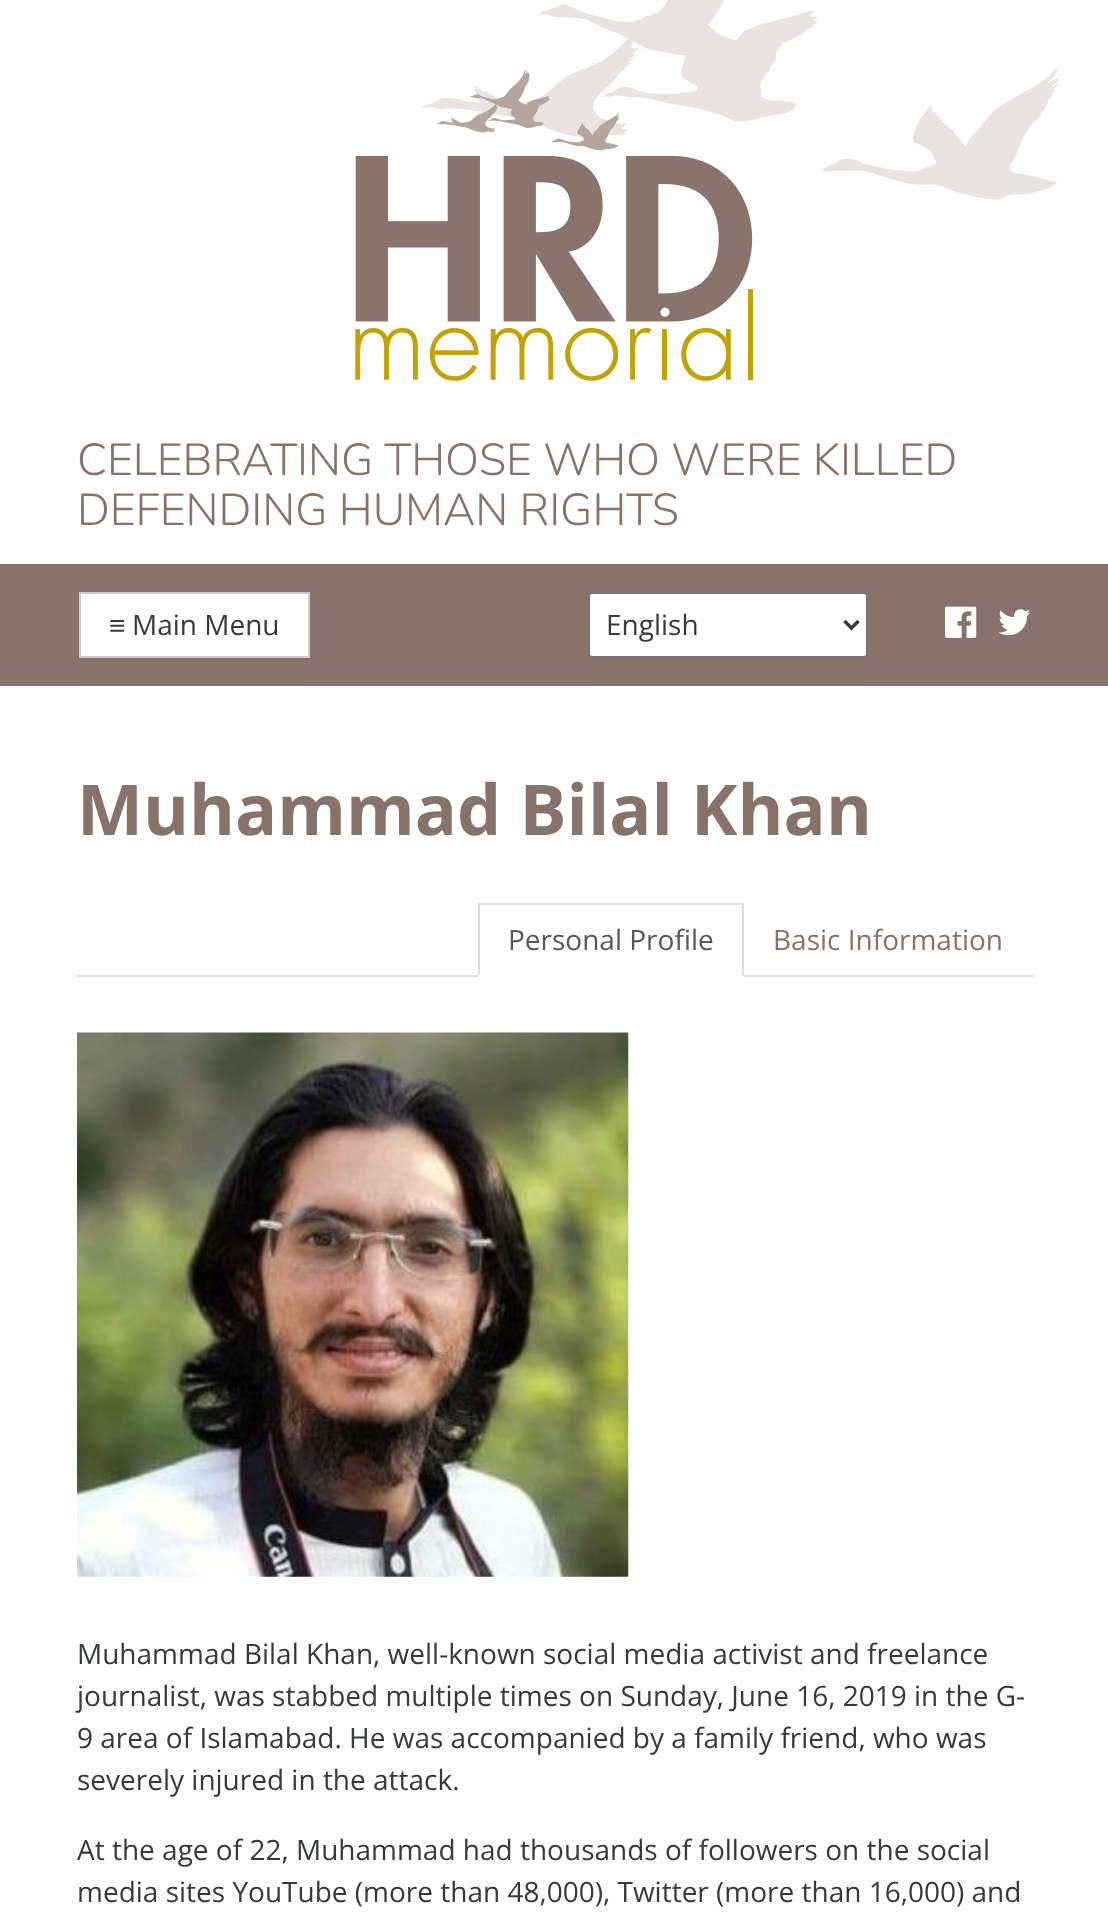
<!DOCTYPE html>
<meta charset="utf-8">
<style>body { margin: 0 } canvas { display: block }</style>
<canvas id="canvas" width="1108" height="1924"></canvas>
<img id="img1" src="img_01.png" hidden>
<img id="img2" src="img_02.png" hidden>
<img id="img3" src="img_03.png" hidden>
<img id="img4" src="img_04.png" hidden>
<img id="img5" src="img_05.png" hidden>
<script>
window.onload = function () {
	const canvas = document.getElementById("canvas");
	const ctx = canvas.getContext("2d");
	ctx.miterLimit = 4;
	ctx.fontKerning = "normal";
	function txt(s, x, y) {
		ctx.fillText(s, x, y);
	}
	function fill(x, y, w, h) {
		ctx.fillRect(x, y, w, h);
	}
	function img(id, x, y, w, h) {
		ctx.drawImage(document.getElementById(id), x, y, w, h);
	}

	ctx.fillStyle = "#FFFFFF";
	fill(0, 0, 1108, 1924);
	img("img1", 422, 0, 637, 200);
	img("img2", 355, 70, 398, 311);
	ctx.fillStyle = "#87736A";
	fill(0, 564, 1108, 122);
	ctx.fillStyle = "#FFFFFF";
	ctx.beginPath();
	ctx.rect(80, 593, 229, 64);
	ctx.fill();
	ctx.strokeStyle = "#CCCCCC";
	ctx.lineWidth = 2;
	ctx.stroke();
	ctx.beginPath();
	ctx.roundRect(589, 593, 278, 64, 3);
	ctx.fill();
	ctx.strokeStyle = "#767676";
	ctx.stroke();
	ctx.beginPath();
	ctx.moveTo(844.5, 621);
	ctx.lineTo(851.5, 628);
	ctx.lineTo(858.5, 621);
	ctx.strokeStyle = "#373A3C";
	ctx.lineWidth = 3.5;
	ctx.stroke();
	img("img3", 945, 606, 32, 32);
	img("img4", 998, 609, 33, 27);
	ctx.fillStyle = "#DDDDDD";
	fill(77, 975, 956, 2);
	ctx.fillStyle = "#FFFFFF";
	fill(478, 975, 266, 2);
	ctx.fillStyle = "#DDDDDD";
	fill(478, 903, 266, 2);
	ctx.beginPath();
	ctx.moveTo(744, 903);
	ctx.lineTo(744, 976);
	ctx.lineTo(742, 975);
	ctx.lineTo(742, 905);
	ctx.closePath();
	ctx.fill();
	ctx.beginPath();
	ctx.moveTo(478, 976);
	ctx.lineTo(478, 903);
	ctx.lineTo(480, 905);
	ctx.lineTo(480, 975);
	ctx.closePath();
	ctx.fill();
	img("img5", 77, 1032, 552, 545);
	ctx.font = "300 44.75px Nunito";
	ctx.fillStyle = "#87736A";
	txt("CELEBRATING THOSE WHO WERE KILLED", 77, 475);
	txt("DEFENDING HUMAN RIGHTS", 77, 525);
	ctx.font = "28px Liberation Sans";
	ctx.fillStyle = "#373A3C";
	txt("≡", 109, 635);
	ctx.font = "28px Open Sans";
	txt("Main Menu", 132, 635);
	txt("English", 606, 635);
	ctx.font = "bold 70px Open Sans";
	ctx.fillStyle = "#87736A";
	txt("Muhammad Bilal Khan", 77, 835);
	ctx.font = "28px Open Sans";
	ctx.fillStyle = "#55595C";
	txt("Personal Profile", 508, 950);
	ctx.fillStyle = "#87736A";
	txt("Basic Information", 773, 950);
	ctx.fillStyle = "#373A3C";
	txt("Muhammad Bilal Khan, well-known social media activist and freelance", 77, 1664);
	txt("journalist, was stabbed multiple times on Sunday, June 16, 2019 in the G-", 77, 1706);
	txt("9 area of Islamabad. He was accompanied by a family friend, who was", 77, 1748);
	txt("severely injured in the attack.", 77, 1790);
	txt("At the age of 22, Muhammad had thousands of followers on the social", 77, 1860);
	txt("media sites YouTube (more than 48,000), Twitter (more than 16,000) and", 77, 1902);
};
</script>
